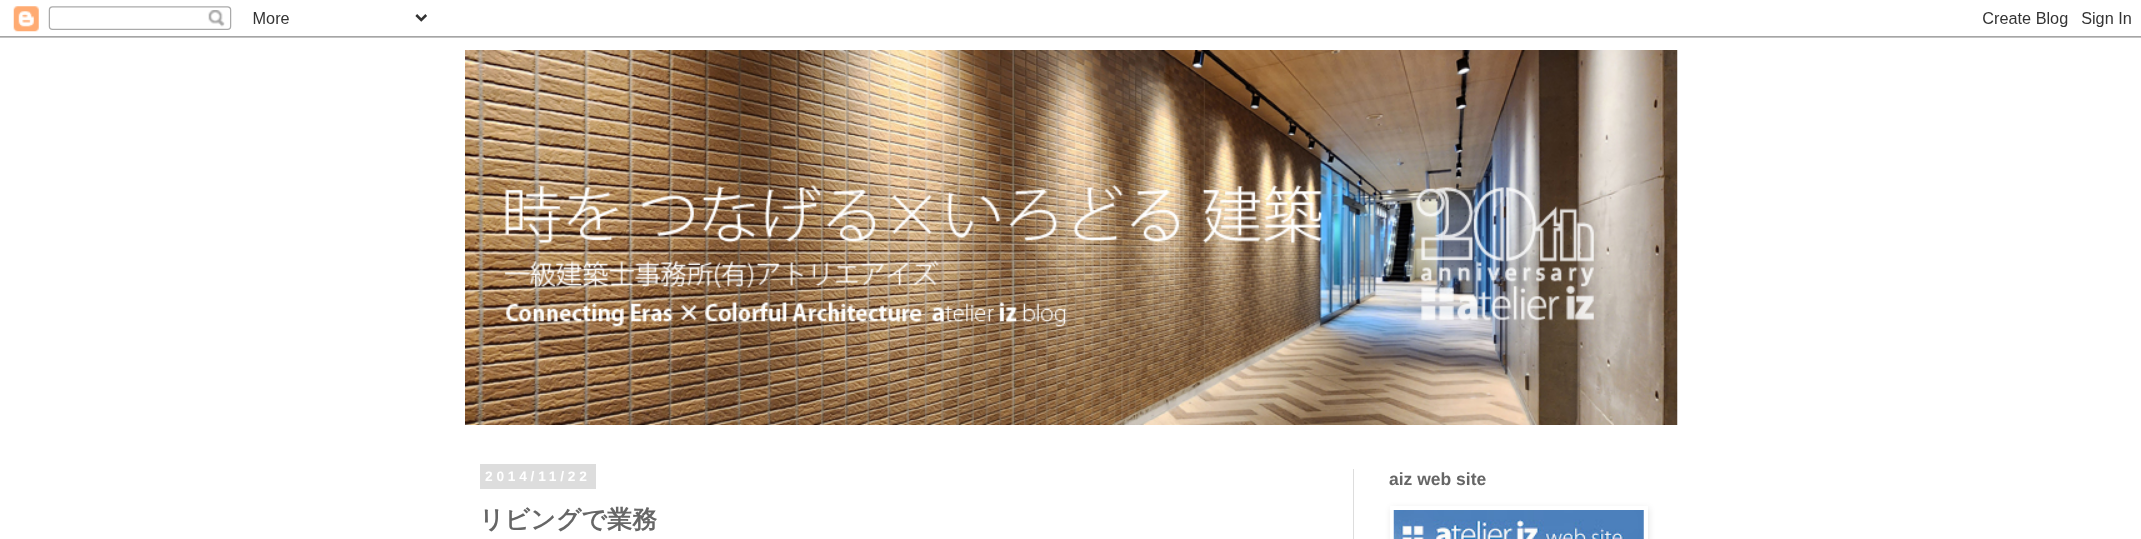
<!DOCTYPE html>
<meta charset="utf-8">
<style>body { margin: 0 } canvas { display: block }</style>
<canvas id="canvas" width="2141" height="539"></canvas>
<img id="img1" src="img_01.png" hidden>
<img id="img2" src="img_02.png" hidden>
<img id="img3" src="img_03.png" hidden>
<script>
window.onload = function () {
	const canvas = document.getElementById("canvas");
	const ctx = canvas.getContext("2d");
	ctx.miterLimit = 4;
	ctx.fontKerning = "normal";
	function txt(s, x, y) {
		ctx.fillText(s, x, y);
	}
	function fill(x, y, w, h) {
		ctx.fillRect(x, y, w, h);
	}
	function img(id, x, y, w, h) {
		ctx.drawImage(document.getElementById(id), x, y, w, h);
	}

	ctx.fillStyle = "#FFFFFF";
	fill(0, 0, 2141, 539);
	img("img1", 0, 6, 2141, 32);
	img("img2", 465, 50, 1213, 375);
	ctx.fillStyle = "#DDDDDD";
	fill(1353, 469, 1, 70);
	fill(480, 464, 116, 25);
	ctx.fillStyle = "rgba(0, 0, 0, 0.1)";
	ctx.filter = "blur(3px)";
	ctx.beginPath();
	ctx.rect(1391, 508, 258, 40);
	ctx.fill();
	ctx.filter = "none";
	ctx.fillStyle = "#FFFFFF";
	fill(1390, 506, 258, 33);
	img("img3", 1393, 510, 251, 29);
	ctx.letterSpacing = "3.75px";
	ctx.font = "bold 13.75px Liberation Sans";
	txt("2014/11/22", 485, 481);
	ctx.letterSpacing = "0px";
	ctx.font = "bold 25px WenQuanYi Zen Hei";
	ctx.fillStyle = "#666666";
	txt("リビングで業務", 479, 528);
	ctx.font = "bold 17.5px Arimo";
	txt("aiz web site", 1389, 485);
};
</script>
